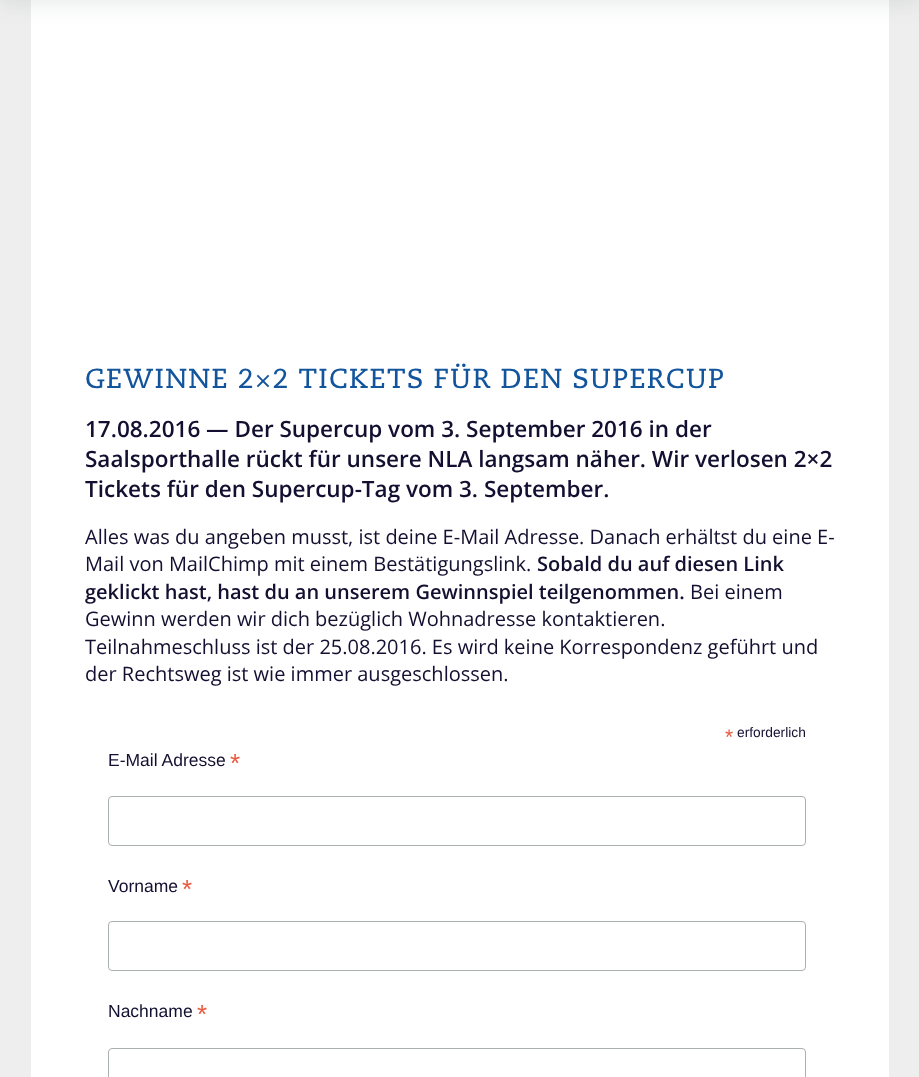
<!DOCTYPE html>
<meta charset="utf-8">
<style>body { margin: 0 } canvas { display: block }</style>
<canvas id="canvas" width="919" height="1077"></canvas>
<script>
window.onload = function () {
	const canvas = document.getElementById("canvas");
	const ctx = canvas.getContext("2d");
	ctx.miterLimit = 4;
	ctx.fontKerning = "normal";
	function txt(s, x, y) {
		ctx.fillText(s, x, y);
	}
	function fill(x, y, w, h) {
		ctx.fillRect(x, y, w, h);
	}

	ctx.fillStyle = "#EEEEEE";
	fill(0, 0, 919, 1077);
	ctx.fillStyle = "#FFFFFF";
	fill(31, 0, 858, 1077);
	ctx.fillStyle = "rgba(63, 71, 80, 0.15)";
	ctx.filter = "blur(12.5px)";
	ctx.beginPath();
	ctx.rect(0, -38, 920, 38);
	ctx.fill();
	ctx.filter = "none";
	ctx.beginPath();
	ctx.roundRect(108.5, 796.5, 697, 49, 3.5);
	ctx.strokeStyle = "#ABB0B2";
	ctx.stroke();
	ctx.beginPath();
	ctx.roundRect(108.5, 921.5, 697, 49, 3.5);
	ctx.stroke();
	ctx.beginPath();
	ctx.roundRect(108.5, 1048.5, 697, 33, 3.5);
	ctx.stroke();
	ctx.letterSpacing = "1.25px";
	ctx.font = "27.5px 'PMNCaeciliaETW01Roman'";
	ctx.fillStyle = "#13559D";
	txt("GEWINNE 2×2 TICKETS FÜR DEN SUPERCUP", 85, 388);
	ctx.letterSpacing = "0px";
	ctx.font = "600 22.5px Open Sans";
	ctx.fillStyle = "#130F30";
	txt("17.08.2016 — Der Supercup vom 3. September 2016 in der", 85, 437);
	txt("Saalsporthalle rückt für unsere NLA langsam näher. Wir verlosen 2×2", 85, 467);
	txt("Tickets für den Supercup-Tag vom 3. September.", 85, 497);
	ctx.font = "20px Open Sans";
	txt("Alles was du angeben musst, ist deine E-Mail Adresse. Danach erhältst du eine E-", 85, 544);
	txt("Mail von MailChimp mit einem Bestätigungslink.", 85, 571);
	ctx.font = "600 20px Open Sans";
	txt("Sobald du auf diesen Link", 537, 571);
	txt("geklickt hast, hast du an unserem Gewinnspiel teilgenommen.", 85, 599);
	ctx.font = "20px Open Sans";
	txt("Bei einem", 690, 599);
	txt("Gewinn werden wir dich bezüglich Wohnadresse kontaktieren.", 85, 626);
	txt("Teilnahmeschluss ist der 25.08.2016. Es wird keine Korrespondenz geführt und", 85, 654);
	txt("der Rechtsweg ist wie immer ausgeschlossen.", 85, 681);
	ctx.font = "21px Liberation Sans";
	ctx.fillStyle = "#E85C41";
	txt("*", 725, 744);
	ctx.font = "13.75px Liberation Sans";
	ctx.fillStyle = "#130F30";
	txt("erforderlich", 737, 737);
	ctx.font = "17.5px Liberation Sans";
	txt("E-Mail Adresse", 108, 766);
	ctx.font = "26px Liberation Sans";
	ctx.fillStyle = "#E85C41";
	txt("*", 230, 772);
	ctx.font = "17.5px Liberation Sans";
	ctx.fillStyle = "#130F30";
	txt("Vorname", 108, 892);
	ctx.font = "26px Liberation Sans";
	ctx.fillStyle = "#E85C41";
	txt("*", 182, 898);
	ctx.font = "17.5px Liberation Sans";
	ctx.fillStyle = "#130F30";
	txt("Nachname", 108, 1017);
	ctx.font = "26px Liberation Sans";
	ctx.fillStyle = "#E85C41";
	txt("*", 197, 1023);
};
</script>
